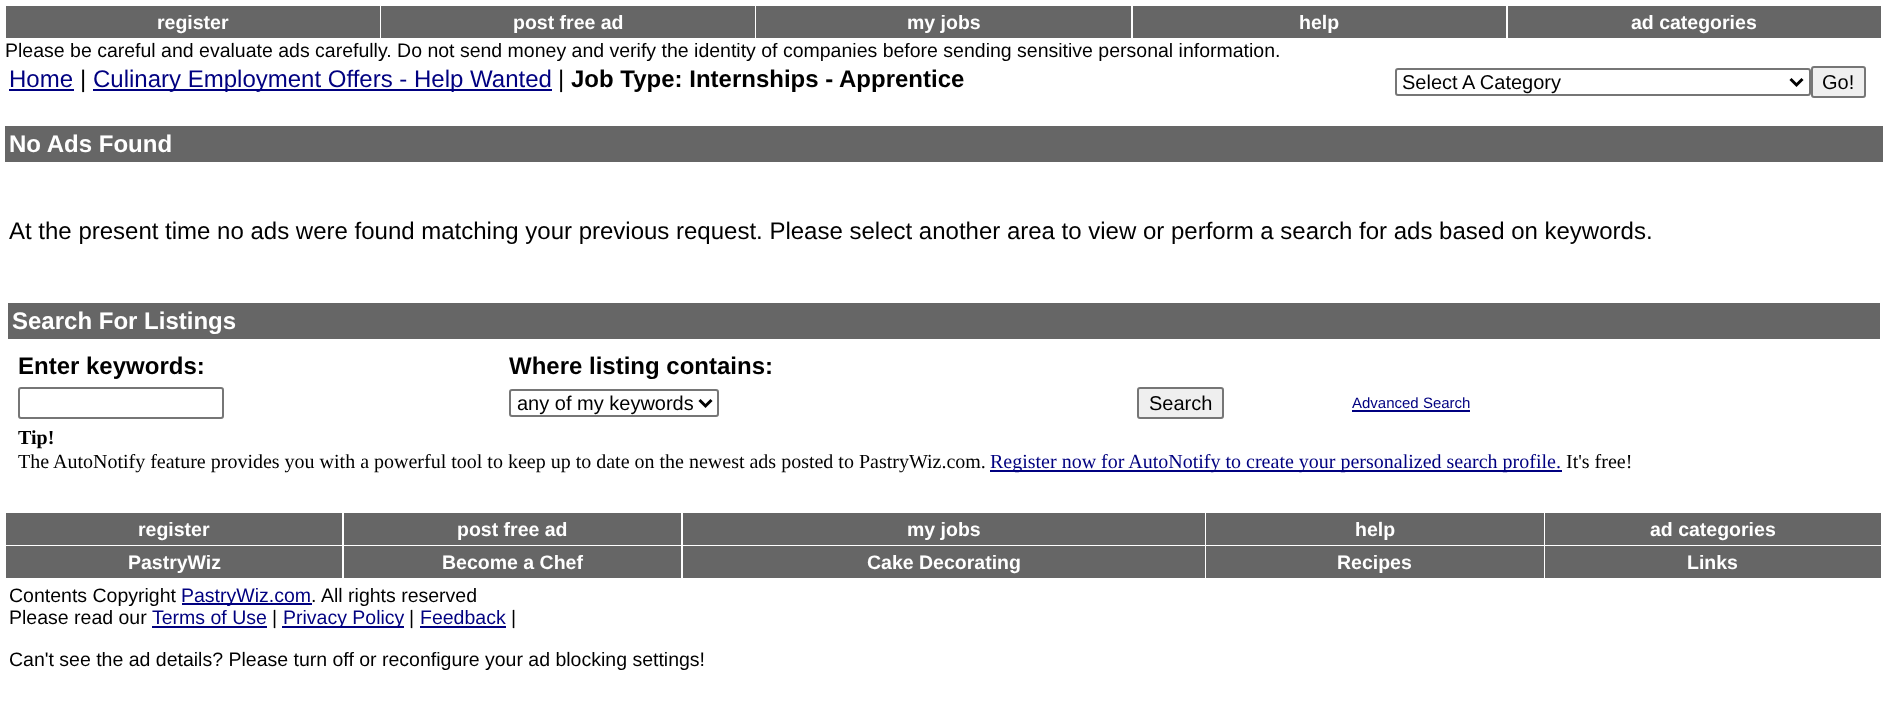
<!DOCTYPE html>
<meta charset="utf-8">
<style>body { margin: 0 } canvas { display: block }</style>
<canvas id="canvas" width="1892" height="705"></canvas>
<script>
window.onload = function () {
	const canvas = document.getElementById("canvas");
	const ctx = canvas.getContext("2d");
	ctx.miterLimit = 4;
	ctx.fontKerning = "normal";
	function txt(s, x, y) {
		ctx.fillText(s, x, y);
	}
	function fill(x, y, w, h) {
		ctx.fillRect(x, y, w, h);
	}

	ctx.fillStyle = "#FFFFFF";
	fill(0, 0, 1892, 705);
	ctx.fillStyle = "#666666";
	fill(6, 6, 374, 32);
	fill(381, 6, 374, 32);
	fill(756, 6, 375, 32);
	fill(1133, 6, 373, 32);
	fill(1508, 6, 373, 32);
	ctx.fillStyle = "#000080";
	fill(9, 89, 65, 2);
	fill(93, 89, 459, 2);
	ctx.beginPath();
	ctx.roundRect(1396, 69, 414, 26, 2);
	ctx.strokeStyle = "#767676";
	ctx.lineWidth = 2;
	ctx.stroke();
	ctx.beginPath();
	ctx.moveTo(1790.5, 79);
	ctx.lineTo(1796.5, 85);
	ctx.lineTo(1802.5, 79);
	ctx.strokeStyle = "#000000";
	ctx.lineWidth = 3;
	ctx.stroke();
	ctx.fillStyle = "#EFEFEF";
	ctx.beginPath();
	ctx.roundRect(1812, 67, 53, 30, 2);
	ctx.fill();
	ctx.strokeStyle = "#767676";
	ctx.lineWidth = 2;
	ctx.stroke();
	ctx.fillStyle = "#666666";
	fill(5, 126, 1878, 36);
	fill(8, 303, 1872, 36);
	ctx.beginPath();
	ctx.roundRect(19, 388, 204, 30, 2);
	ctx.stroke();
	ctx.beginPath();
	ctx.roundRect(510, 390, 208, 26, 2);
	ctx.stroke();
	ctx.beginPath();
	ctx.moveTo(699.5, 400);
	ctx.lineTo(705.5, 406);
	ctx.lineTo(711.5, 400);
	ctx.strokeStyle = "#000000";
	ctx.lineWidth = 3;
	ctx.stroke();
	ctx.fillStyle = "#EFEFEF";
	ctx.beginPath();
	ctx.roundRect(1138, 388, 85, 30, 2);
	ctx.fill();
	ctx.strokeStyle = "#767676";
	ctx.lineWidth = 2;
	ctx.stroke();
	ctx.fillStyle = "#000080";
	fill(1352, 410, 118, 2);
	fill(990, 470, 572, 2);
	ctx.fillStyle = "#666666";
	fill(6, 513, 336, 32);
	fill(344, 513, 337, 32);
	fill(683, 513, 522, 32);
	fill(1206, 513, 338, 32);
	fill(1545, 513, 336, 32);
	fill(6, 546, 336, 32);
	fill(344, 546, 337, 32);
	fill(683, 546, 522, 32);
	fill(1206, 546, 338, 32);
	fill(1545, 546, 336, 32);
	ctx.fillStyle = "#000080";
	fill(182, 603, 130, 2);
	fill(152, 626, 115, 2);
	fill(282, 626, 122, 2);
	fill(420, 626, 86, 2);
	ctx.font = "bold 19.5px Liberation Sans";
	ctx.fillStyle = "#FFFFFF";
	txt("register", 157, 29);
	txt("post free ad", 513, 29);
	txt("my jobs", 907, 29);
	txt("help", 1299, 29);
	txt("ad categories", 1631, 29);
	ctx.font = "19.5px Liberation Sans";
	ctx.fillStyle = "#000000";
	txt("Please be careful and evaluate ads carefully. Do not send money and verify the identity of companies before sending sensitive personal information.", 5, 57);
	ctx.font = "24px Liberation Sans";
	ctx.fillStyle = "#000080";
	txt("Home", 9, 87);
	ctx.fillStyle = "#000000";
	txt("|", 80, 87);
	ctx.fillStyle = "#000080";
	txt("Culinary Employment Offers - Help Wanted", 93, 87);
	ctx.fillStyle = "#000000";
	txt("|", 558, 87);
	ctx.font = "bold 24px Liberation Sans";
	txt("Job Type: Internships - Apprentice", 571, 87);
	ctx.font = "20px Liberation Sans";
	txt("Select A Category", 1402, 89);
	txt("Go!", 1822, 89);
	ctx.font = "bold 24px Liberation Sans";
	ctx.fillStyle = "#FFFFFF";
	txt("No Ads Found", 9, 152);
	ctx.font = "24px Liberation Sans";
	ctx.fillStyle = "#000000";
	txt("At the present time no ads were found matching your previous request. Please select another area to view or perform a search for ads based on keywords.", 9, 239);
	ctx.font = "bold 24px Liberation Sans";
	ctx.fillStyle = "#FFFFFF";
	txt("Search For Listings", 12, 329);
	ctx.fillStyle = "#000000";
	txt("Enter keywords:", 18, 374);
	txt("Where listing contains:", 509, 374);
	ctx.font = "20px Liberation Sans";
	txt("any of my keywords", 517, 410);
	txt("Search", 1149, 410);
	ctx.font = "15px Liberation Sans";
	ctx.fillStyle = "#000080";
	txt("Advanced Search", 1352, 408);
	ctx.font = "bold 20px Liberation Serif";
	ctx.fillStyle = "#000000";
	txt("Tip!", 18, 444);
	ctx.font = "20px Liberation Serif";
	txt("The AutoNotify feature provides you with a powerful tool to keep up to date on the newest ads posted to PastryWiz.com.", 18, 468);
	ctx.fillStyle = "#000080";
	txt("Register now for AutoNotify to create your personalized search profile.", 990, 468);
	ctx.fillStyle = "#000000";
	txt("It's free!", 1566, 468);
	ctx.font = "bold 19.5px Liberation Sans";
	ctx.fillStyle = "#FFFFFF";
	txt("register", 138, 536);
	txt("post free ad", 457, 536);
	txt("my jobs", 907, 536);
	txt("help", 1355, 536);
	txt("ad categories", 1650, 536);
	txt("PastryWiz", 128, 569);
	txt("Become a Chef", 442, 569);
	txt("Cake Decorating", 867, 569);
	txt("Recipes", 1337, 569);
	txt("Links", 1687, 569);
	ctx.font = "19.5px Liberation Sans";
	ctx.fillStyle = "#000000";
	txt("Contents Copyright", 9, 602);
	ctx.fillStyle = "#000080";
	txt("PastryWiz.com", 181, 602);
	ctx.fillStyle = "#000000";
	txt(".", 311, 602);
	txt("All rights reserved", 321, 602);
	txt("Please read our", 9, 624);
	ctx.fillStyle = "#000080";
	txt("Terms of Use", 152, 624);
	ctx.fillStyle = "#000000";
	txt("|", 272, 624);
	ctx.fillStyle = "#000080";
	txt("Privacy Policy", 283, 624);
	ctx.fillStyle = "#000000";
	txt("|", 409, 624);
	ctx.fillStyle = "#000080";
	txt("Feedback", 420, 624);
	ctx.fillStyle = "#000000";
	txt("|", 511, 624);
	txt("Can't see the ad details? Please turn off or reconfigure your ad blocking settings!", 9, 666);
};
</script>
